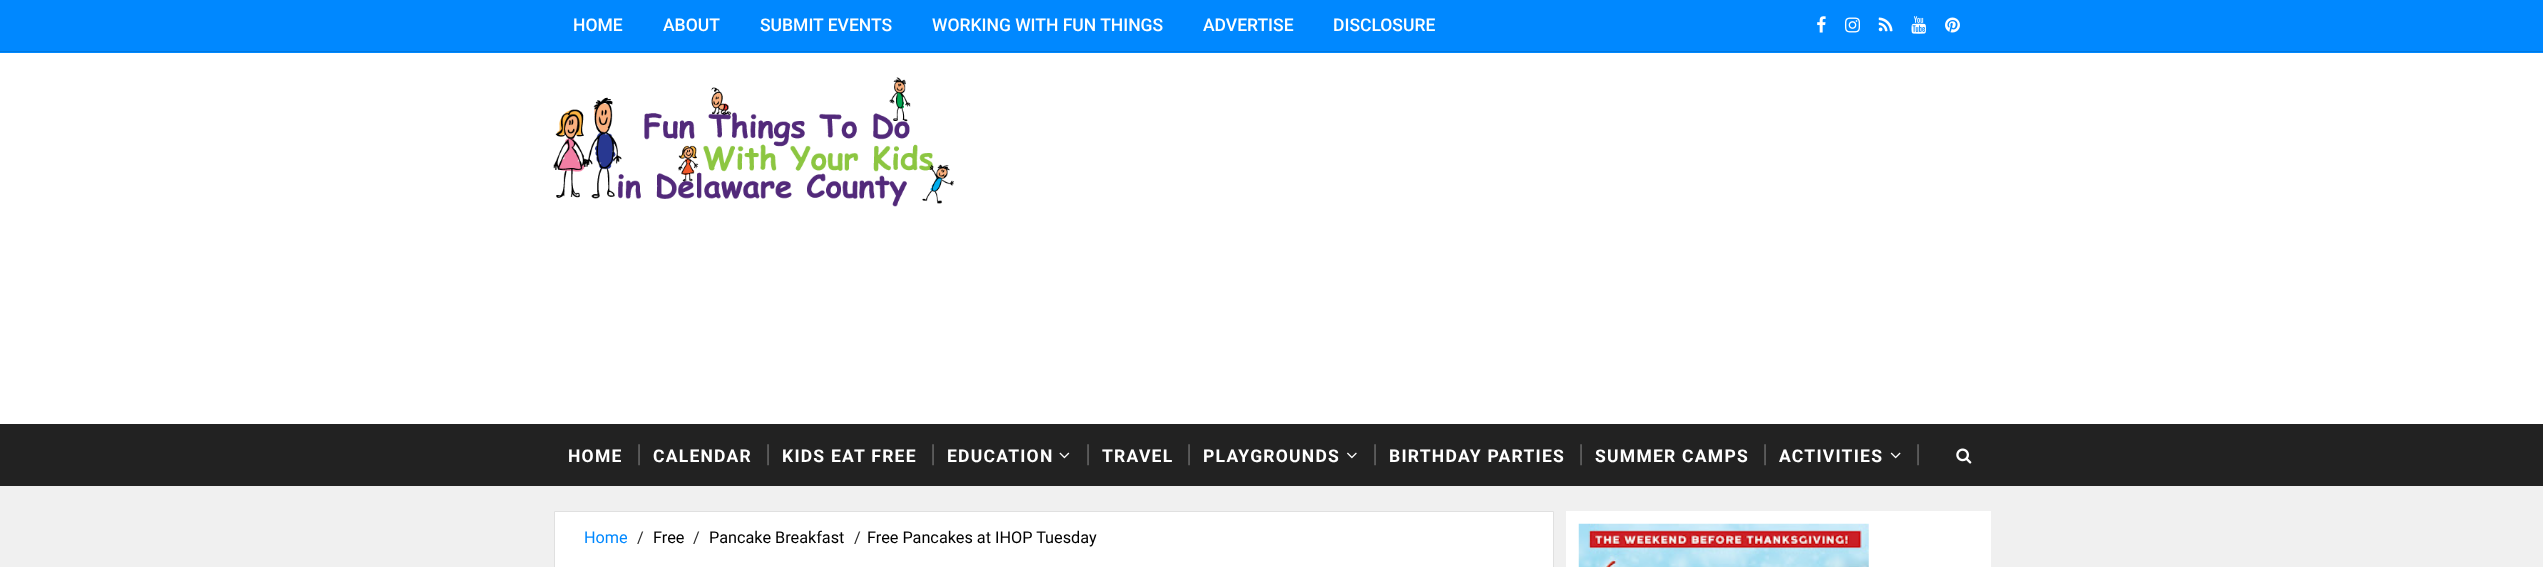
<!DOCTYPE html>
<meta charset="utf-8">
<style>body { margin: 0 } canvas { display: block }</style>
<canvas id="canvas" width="2543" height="567"></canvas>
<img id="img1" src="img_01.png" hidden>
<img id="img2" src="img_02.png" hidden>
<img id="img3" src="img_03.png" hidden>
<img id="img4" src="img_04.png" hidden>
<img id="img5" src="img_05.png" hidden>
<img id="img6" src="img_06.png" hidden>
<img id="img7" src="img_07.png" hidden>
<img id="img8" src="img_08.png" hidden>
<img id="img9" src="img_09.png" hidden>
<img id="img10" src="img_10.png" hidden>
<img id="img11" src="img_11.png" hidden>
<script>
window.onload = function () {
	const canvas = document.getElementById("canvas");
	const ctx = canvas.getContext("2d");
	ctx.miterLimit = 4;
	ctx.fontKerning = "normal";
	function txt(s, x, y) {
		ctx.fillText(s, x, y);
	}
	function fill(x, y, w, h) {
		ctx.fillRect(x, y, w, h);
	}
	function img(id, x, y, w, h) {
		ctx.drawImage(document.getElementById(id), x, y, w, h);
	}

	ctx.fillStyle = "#F0F0F0";
	fill(0, 0, 2543, 567);
	ctx.fillStyle = "#0088FF";
	fill(0, 0, 2543, 53);
	ctx.fillStyle = "#0078E0";
	fill(0, 51, 2543, 1);
	img("img1", 1817, 16, 9, 17);
	img("img2", 1845, 17, 15, 16);
	img("img3", 1878, 17, 15, 15);
	img("img4", 1911, 16, 15, 18);
	img("img5", 1945, 17, 15, 16);
	ctx.fillStyle = "#FFFFFF";
	fill(0, 53, 2543, 371);
	img("img6", 553, 77, 401, 130);
	ctx.fillStyle = "#222222";
	fill(0, 424, 2543, 62);
	img("img7", 1059, 452, 11, 7);
	img("img8", 1347, 452, 10, 7);
	img("img9", 1890, 452, 11, 7);
	img("img10", 1956, 448, 16, 16);
	ctx.fillStyle = "#FFFFFF";
	ctx.beginPath();
	ctx.rect(554.5, 511.5, 999, 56);
	ctx.fill();
	ctx.strokeStyle = "#E0E0E0";
	ctx.stroke();
	fill(1566, 511, 425, 56);
	img("img11", 1578, 523, 291, 44);
	ctx.font = "500 17.5px Roboto";
	txt("HOME", 573, 31);
	txt("ABOUT", 663, 31);
	txt("SUBMIT EVENTS", 760, 31);
	txt("WORKING WITH FUN THINGS", 932, 31);
	txt("ADVERTISE", 1203, 31);
	txt("DISCLOSURE", 1333, 31);
	ctx.letterSpacing = "1.25px";
	ctx.font = "bold 17.5px Roboto";
	txt("HOME", 568, 462);
	ctx.letterSpacing = "0px";
	ctx.font = "25px Roboto";
	ctx.fillStyle = "#5C5C5C";
	txt("|", 636, 462);
	ctx.letterSpacing = "1.25px";
	ctx.font = "bold 17.5px Roboto";
	ctx.fillStyle = "#FFFFFF";
	txt("CALENDAR", 653, 462);
	ctx.letterSpacing = "0px";
	ctx.font = "25px Roboto";
	ctx.fillStyle = "#5C5C5C";
	txt("|", 765, 462);
	ctx.letterSpacing = "1.25px";
	ctx.font = "bold 17.5px Roboto";
	ctx.fillStyle = "#FFFFFF";
	txt("KIDS EAT FREE", 782, 462);
	ctx.letterSpacing = "0px";
	ctx.font = "25px Roboto";
	ctx.fillStyle = "#5C5C5C";
	txt("|", 930, 462);
	ctx.letterSpacing = "1.25px";
	ctx.font = "bold 17.5px Roboto";
	ctx.fillStyle = "#FFFFFF";
	txt("EDUCATION", 947, 462);
	ctx.letterSpacing = "0px";
	ctx.font = "25px Roboto";
	ctx.fillStyle = "#5C5C5C";
	txt("|", 1085, 462);
	ctx.letterSpacing = "1.25px";
	ctx.font = "bold 17.5px Roboto";
	ctx.fillStyle = "#FFFFFF";
	txt("TRAVEL", 1102, 462);
	ctx.letterSpacing = "0px";
	ctx.font = "25px Roboto";
	ctx.fillStyle = "#5C5C5C";
	txt("|", 1186, 462);
	ctx.letterSpacing = "1.25px";
	ctx.font = "bold 17.5px Roboto";
	ctx.fillStyle = "#FFFFFF";
	txt("PLAYGROUNDS", 1203, 462);
	ctx.letterSpacing = "0px";
	ctx.font = "25px Roboto";
	ctx.fillStyle = "#5C5C5C";
	txt("|", 1372, 462);
	ctx.letterSpacing = "1.25px";
	ctx.font = "bold 17.5px Roboto";
	ctx.fillStyle = "#FFFFFF";
	txt("BIRTHDAY PARTIES", 1389, 462);
	ctx.letterSpacing = "0px";
	ctx.font = "25px Roboto";
	ctx.fillStyle = "#5C5C5C";
	txt("|", 1578, 462);
	ctx.letterSpacing = "1.25px";
	ctx.font = "bold 17.5px Roboto";
	ctx.fillStyle = "#FFFFFF";
	txt("SUMMER CAMPS", 1595, 462);
	ctx.letterSpacing = "0px";
	ctx.font = "25px Roboto";
	ctx.fillStyle = "#5C5C5C";
	txt("|", 1762, 462);
	ctx.letterSpacing = "1.25px";
	ctx.font = "bold 17.5px Roboto";
	ctx.fillStyle = "#FFFFFF";
	txt("ACTIVITIES", 1779, 462);
	ctx.letterSpacing = "0px";
	ctx.font = "25px Roboto";
	ctx.fillStyle = "#5C5C5C";
	txt("|", 1915, 462);
	ctx.font = "16.25px Roboto";
	ctx.fillStyle = "#0088FF";
	txt("Home", 584, 543);
	ctx.fillStyle = "#2E2E2E";
	txt("/", 637, 543);
	ctx.fillStyle = "#010101";
	txt("Free", 653, 543);
	ctx.fillStyle = "#2E2E2E";
	txt("/", 693, 543);
	ctx.fillStyle = "#010101";
	txt("Pancake Breakfast", 709, 543);
	ctx.fillStyle = "#2E2E2E";
	txt("/", 854, 543);
	ctx.fillStyle = "#010101";
	txt("Free Pancakes at IHOP Tuesday", 867, 543);
};
</script>
